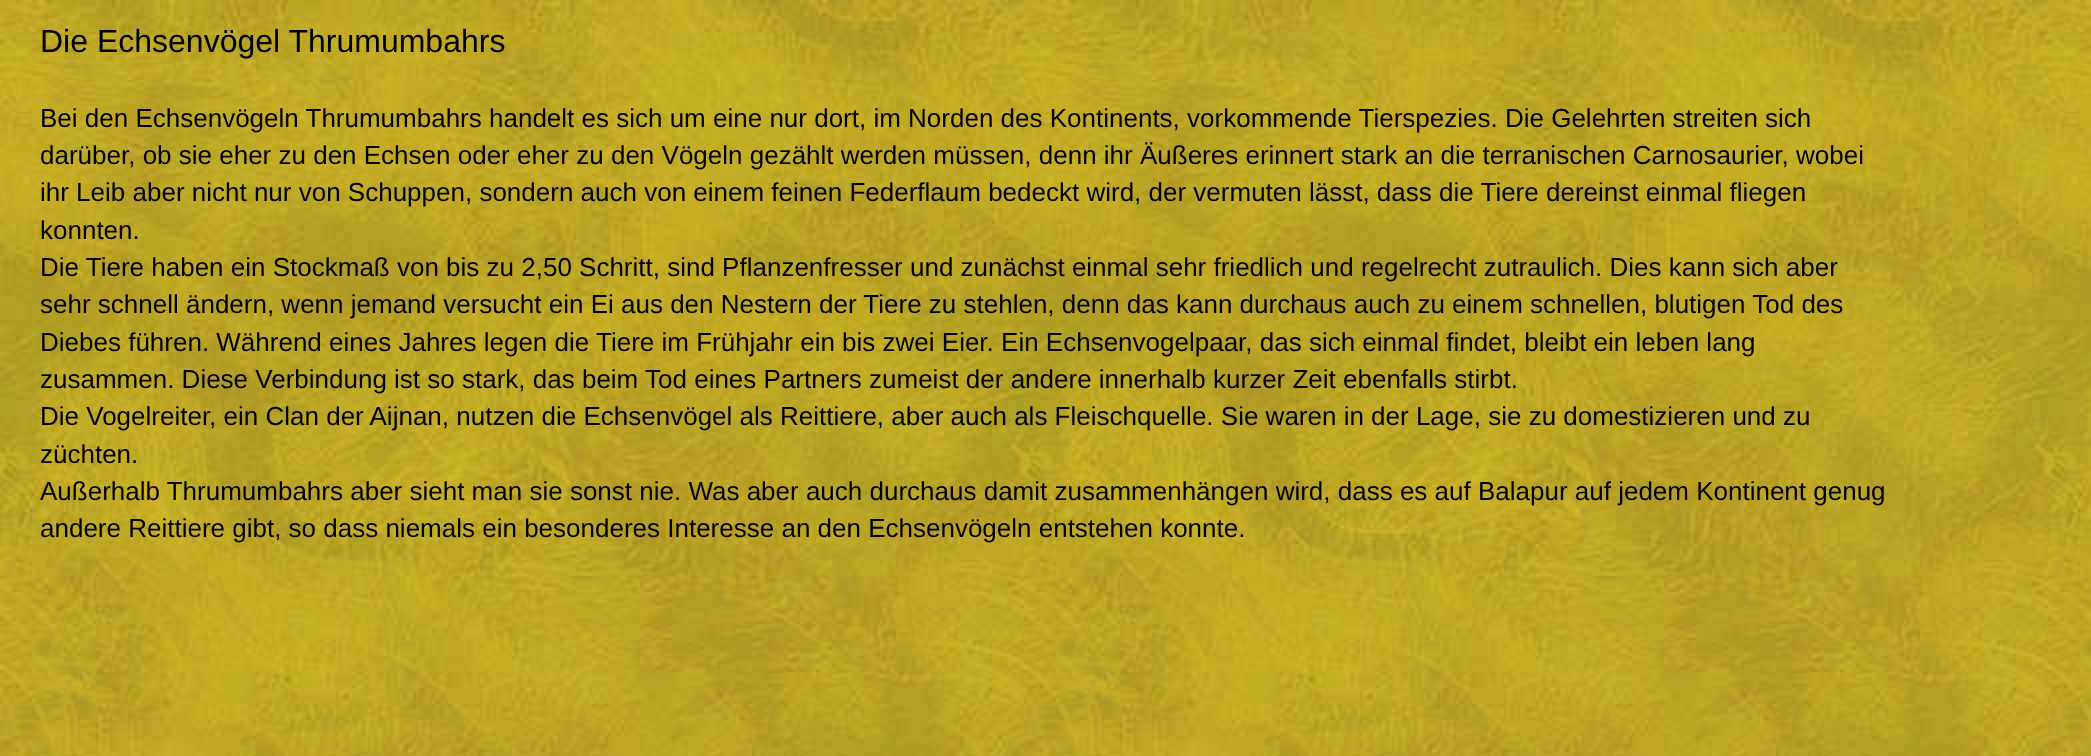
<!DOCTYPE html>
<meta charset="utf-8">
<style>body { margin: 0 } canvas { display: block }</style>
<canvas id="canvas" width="2091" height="756"></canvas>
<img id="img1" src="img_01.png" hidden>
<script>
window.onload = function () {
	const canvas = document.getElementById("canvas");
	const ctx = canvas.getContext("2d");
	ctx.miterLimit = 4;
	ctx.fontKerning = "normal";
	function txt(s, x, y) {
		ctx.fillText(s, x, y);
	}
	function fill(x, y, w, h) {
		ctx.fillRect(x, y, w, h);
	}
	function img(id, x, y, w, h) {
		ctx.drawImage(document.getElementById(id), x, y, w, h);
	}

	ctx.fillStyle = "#FFFFFF";
	fill(0, 0, 2091, 756);
	img("img1", 0, 0, 2091, 756);
	ctx.font = "32px Liberation Sans";
	ctx.fillStyle = "#000000";
	txt("Die Echsenvögel Thrumumbahrs", 40, 52);
	ctx.font = "26px Liberation Sans";
	txt("Bei den Echsenvögeln Thrumumbahrs handelt es sich um eine nur dort, im Norden des Kontinents, vorkommende Tierspezies. Die Gelehrten streiten sich", 40, 127);
	txt("darüber, ob sie eher zu den Echsen oder eher zu den Vögeln gezählt werden müssen, denn ihr Äußeres erinnert stark an die terranischen Carnosaurier, wobei", 40, 164);
	txt("ihr Leib aber nicht nur von Schuppen, sondern auch von einem feinen Federflaum bedeckt wird, der vermuten lässt, dass die Tiere dereinst einmal fliegen", 40, 201);
	txt("konnten.", 40, 239);
	txt("Die Tiere haben ein Stockmaß von bis zu 2,50 Schritt, sind Pflanzenfresser und zunächst einmal sehr friedlich und regelrecht zutraulich. Dies kann sich aber", 40, 276);
	txt("sehr schnell ändern, wenn jemand versucht ein Ei aus den Nestern der Tiere zu stehlen, denn das kann durchaus auch zu einem schnellen, blutigen Tod des", 40, 313);
	txt("Diebes führen. Während eines Jahres legen die Tiere im Frühjahr ein bis zwei Eier. Ein Echsenvogelpaar, das sich einmal findet, bleibt ein leben lang", 40, 351);
	txt("zusammen. Diese Verbindung ist so stark, das beim Tod eines Partners zumeist der andere innerhalb kurzer Zeit ebenfalls stirbt.", 40, 388);
	txt("Die Vogelreiter, ein Clan der Aijnan, nutzen die Echsenvögel als Reittiere, aber auch als Fleischquelle. Sie waren in der Lage, sie zu domestizieren und zu", 40, 425);
	txt("züchten.", 40, 463);
	txt("Außerhalb Thrumumbahrs aber sieht man sie sonst nie. Was aber auch durchaus damit zusammenhängen wird, dass es auf Balapur auf jedem Kontinent genug", 40, 500);
	txt("andere Reittiere gibt, so dass niemals ein besonderes Interesse an den Echsenvögeln entstehen konnte.", 40, 537);
};
</script>
